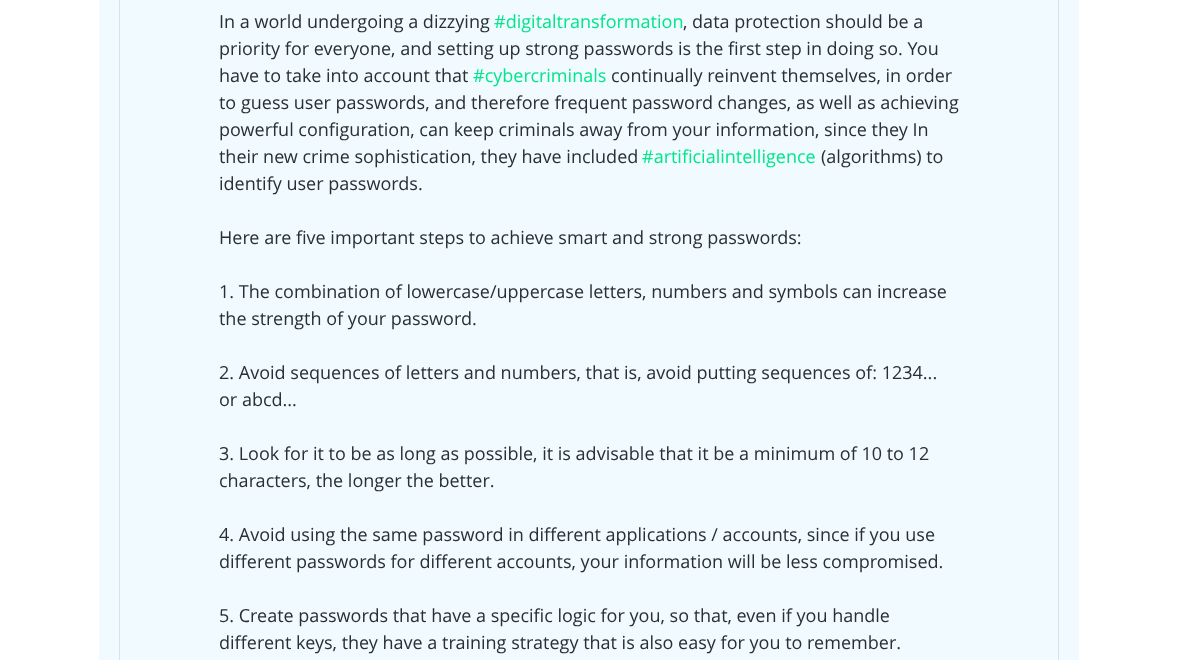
<!DOCTYPE html>
<meta charset="utf-8">
<style>body { margin: 0 } canvas { display: block }</style>
<canvas id="canvas" width="1177" height="660"></canvas>
<script>
window.onload = function () {
	const canvas = document.getElementById("canvas");
	const ctx = canvas.getContext("2d");
	ctx.miterLimit = 4;
	ctx.fontKerning = "normal";
	function txt(s, x, y) {
		ctx.fillText(s, x, y);
	}
	function fill(x, y, w, h) {
		ctx.fillRect(x, y, w, h);
	}

	ctx.fillStyle = "#FFFFFF";
	fill(0, 0, 1177, 660);
	ctx.fillStyle = "#F0FAFF";
	fill(99, 0, 980, 660);
	ctx.strokeStyle = "#D4E4EC";
	ctx.strokeRect(119.5, -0.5, 939, 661);
	ctx.font = "18px Open Sans";
	ctx.fillStyle = "#292F33";
	txt("In a world undergoing a dizzying", 219, 28);
	ctx.fillStyle = "#00E689";
	txt("#digitaltransformation", 494, 28);
	ctx.fillStyle = "#292F33";
	txt(", data protection should be a", 683, 28);
	txt("priority for everyone, and setting up strong passwords is the first step in doing so. You", 219, 55);
	txt("have to take into account that", 219, 82);
	ctx.fillStyle = "#00E689";
	txt("#cybercriminals", 473, 82);
	ctx.fillStyle = "#292F33";
	txt("continually reinvent themselves, in order", 611, 82);
	txt("to guess user passwords, and therefore frequent password changes, as well as achieving", 219, 109);
	txt("powerful configuration, can keep criminals away from your information, since they In", 219, 136);
	txt("their new crime sophistication, they have included", 219, 163);
	ctx.fillStyle = "#00E689";
	txt("#artificialintelligence", 642, 163);
	ctx.fillStyle = "#292F33";
	txt("(algorithms) to", 821, 163);
	txt("identify user passwords.", 219, 190);
	txt("Here are five important steps to achieve smart and strong passwords:", 219, 244);
	txt("1. The combination of lowercase/uppercase letters, numbers and symbols can increase", 219, 298);
	txt("the strength of your password.", 219, 325);
	txt("2. Avoid sequences of letters and numbers, that is, avoid putting sequences of: 1234...", 219, 379);
	txt("or abcd...", 219, 406);
	txt("3. Look for it to be as long as possible, it is advisable that it be a minimum of 10 to 12", 219, 460);
	txt("characters, the longer the better.", 219, 487);
	txt("4. Avoid using the same password in different applications / accounts, since if you use", 219, 541);
	txt("different passwords for different accounts, your information will be less compromised.", 219, 568);
	txt("5. Create passwords that have a specific logic for you, so that, even if you handle", 219, 622);
	txt("different keys, they have a training strategy that is also easy for you to remember.", 219, 649);
};
</script>
